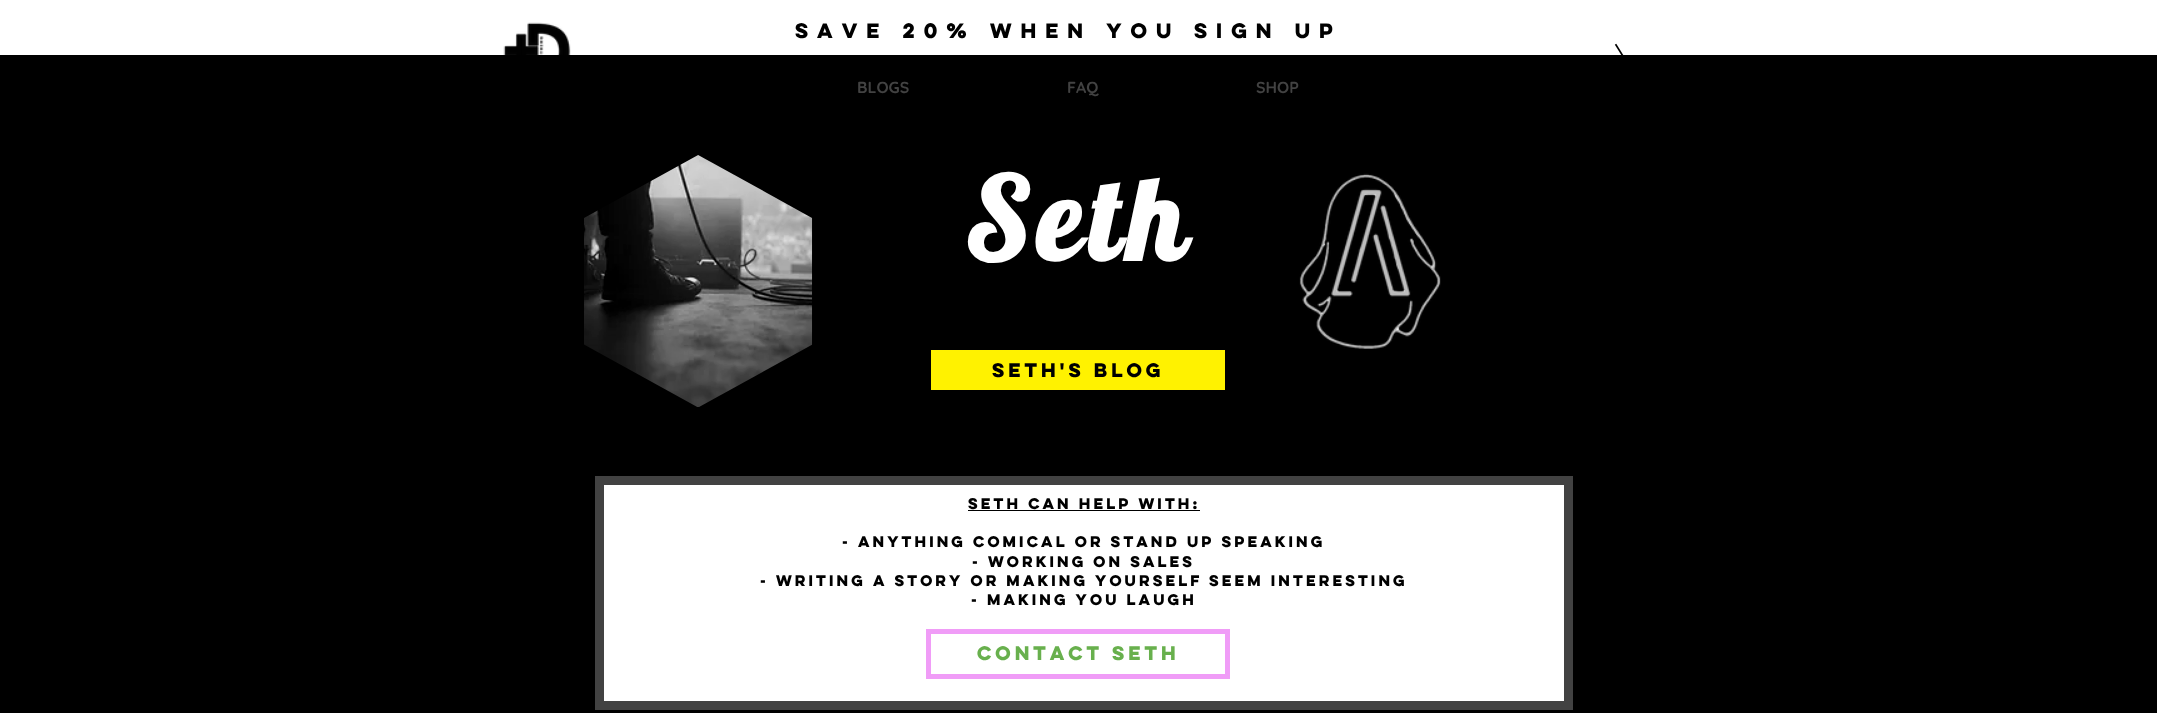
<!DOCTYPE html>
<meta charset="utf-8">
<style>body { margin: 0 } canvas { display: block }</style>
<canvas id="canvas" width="2157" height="713"></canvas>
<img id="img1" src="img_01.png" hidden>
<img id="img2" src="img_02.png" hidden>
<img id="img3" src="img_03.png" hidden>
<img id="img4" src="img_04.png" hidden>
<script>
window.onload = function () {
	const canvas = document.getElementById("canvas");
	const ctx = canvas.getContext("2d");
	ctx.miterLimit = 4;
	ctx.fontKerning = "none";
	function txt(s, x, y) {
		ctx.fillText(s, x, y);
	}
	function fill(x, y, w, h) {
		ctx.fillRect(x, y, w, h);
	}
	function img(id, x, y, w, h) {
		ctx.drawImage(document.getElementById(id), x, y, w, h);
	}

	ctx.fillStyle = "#000000";
	fill(0, 0, 2157, 713);
	ctx.fillStyle = "#FFFFFF";
	fill(0, 0, 2157, 55);
	img("img1", 503, 22, 68, 33);
	img("img2", 1614, 43, 10, 12);
	img("img3", 584, 155, 229, 252);
	img("img4", 1299, 173, 142, 176);
	ctx.fillStyle = "#FFF200";
	fill(931, 350, 294, 40);
	ctx.fillStyle = "#FFFFFF";
	ctx.beginPath();
	ctx.rect(599.5, 480.5, 969, 225);
	ctx.fill();
	ctx.strokeStyle = "#424242";
	ctx.lineWidth = 9;
	ctx.stroke();
	ctx.fillStyle = "#000000";
	fill(968, 510, 232, 1);
	ctx.strokeStyle = "#F09CF7";
	ctx.lineWidth = 5;
	ctx.strokeRect(928.5, 631.5, 299, 45);
	ctx.letterSpacing = "4.7px";
	ctx.font = "bold 18.75px 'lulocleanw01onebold'";
	txt("SAVE 20% WHEN YOU", 795, 38);
	txt("SIGN UP", 1194, 38);
	ctx.letterSpacing = "0px";
	ctx.font = "bold 16px Quicksand";
	ctx.fillStyle = "#424242";
	txt("BLOGS", 857, 93);
	txt("FAQ", 1067, 93);
	txt("SHOP", 1256, 93);
	ctx.letterSpacing = "8px";
	ctx.font = "bold 114px Lobster";
	ctx.fillStyle = "#FFFFFF";
	txt("Seth", 964, 261);
	ctx.letterSpacing = "0px";
	ctx.font = "bold 17.5px 'lulocleanw01onebold'";
	ctx.fillStyle = "#000000";
	txt("SETH'S BLOG", 992, 377);
	ctx.font = "bold 13.75px 'lulocleanw01onebold'";
	txt("Seth can help with:", 968, 509);
	txt("- Anything comical or stand", 842, 547);
	txt("up speaking", 1187, 547);
	txt("- working on sales", 972, 567);
	txt("- writing a story or making yourself", 760, 586);
	txt("seem interesting", 1209, 586);
	txt("- making you laugh", 971, 605);
	ctx.font = "bold 17.5px 'lulocleanw01onebold'";
	ctx.fillStyle = "#68B04D";
	txt("CONTACT SETH", 977, 660);
};
</script>
